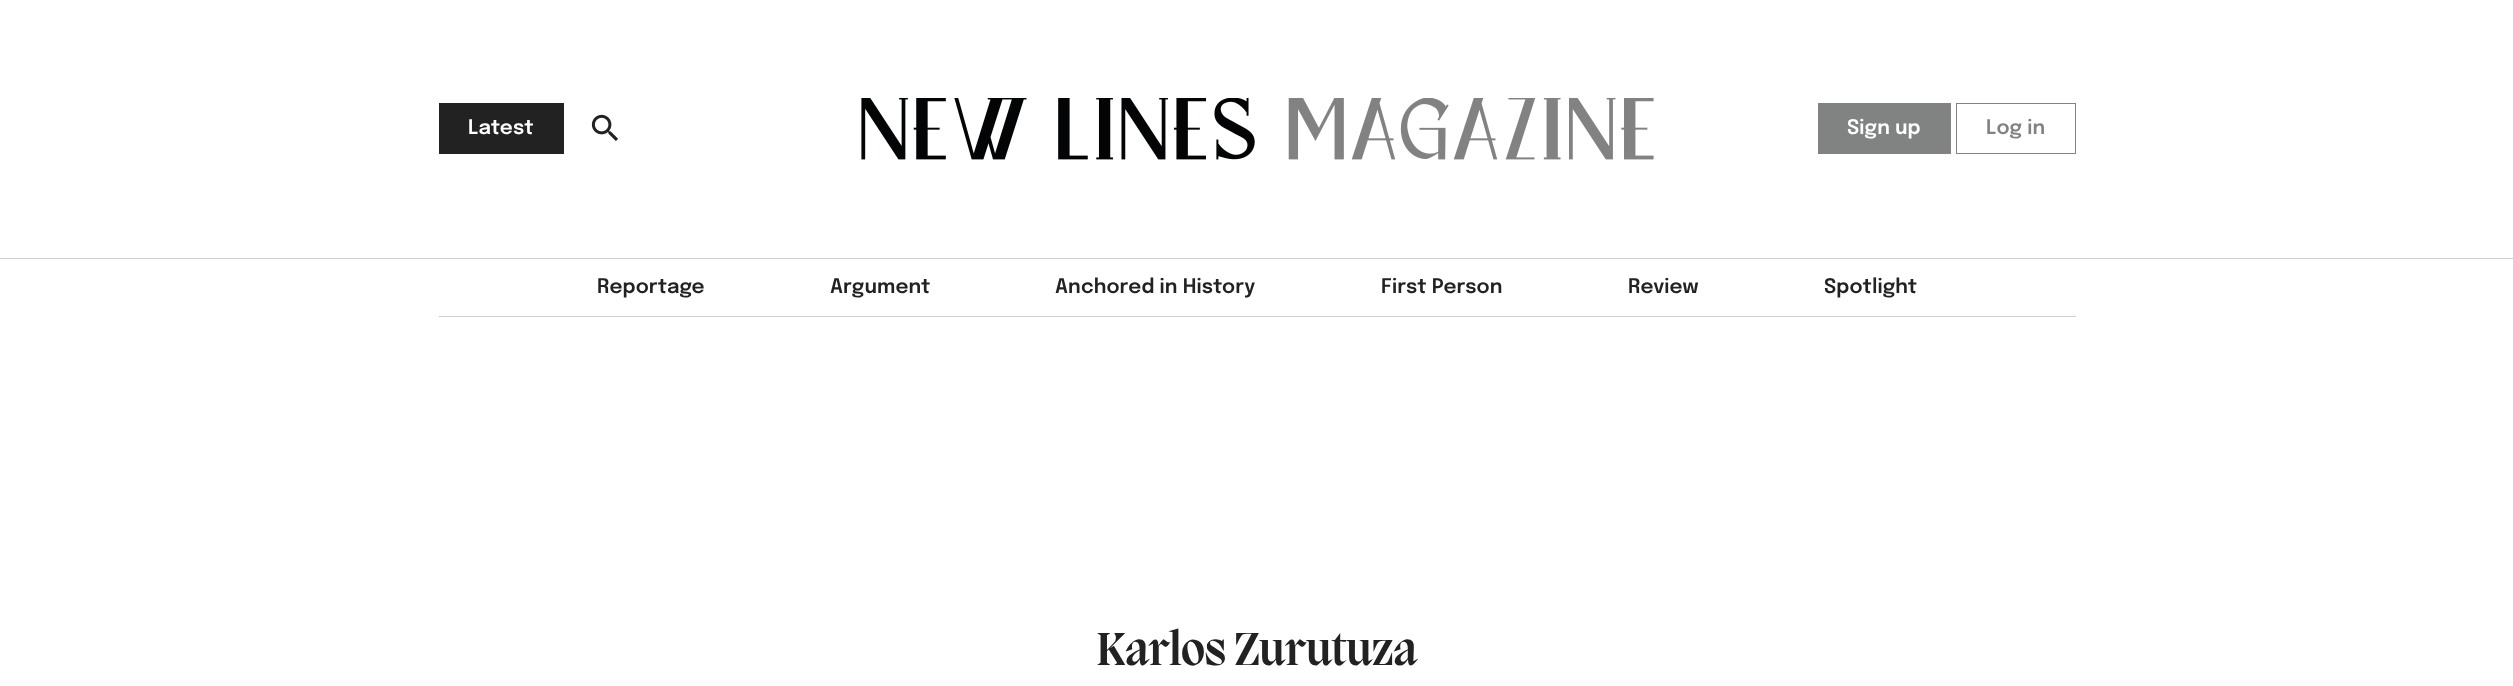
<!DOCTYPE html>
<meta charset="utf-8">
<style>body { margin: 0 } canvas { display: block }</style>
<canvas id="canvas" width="2513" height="686"></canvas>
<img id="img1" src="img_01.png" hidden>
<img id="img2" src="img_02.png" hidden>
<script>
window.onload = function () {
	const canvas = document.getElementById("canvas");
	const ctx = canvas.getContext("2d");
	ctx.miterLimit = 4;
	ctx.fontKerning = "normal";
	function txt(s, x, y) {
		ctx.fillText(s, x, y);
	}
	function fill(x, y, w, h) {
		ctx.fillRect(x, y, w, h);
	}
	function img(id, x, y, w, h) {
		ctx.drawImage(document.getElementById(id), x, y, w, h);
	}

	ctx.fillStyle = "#FFFFFF";
	fill(0, 0, 2513, 686);
	ctx.fillStyle = "#CFCFCF";
	fill(0, 258, 2513, 1);
	ctx.fillStyle = "#222222";
	fill(439, 103, 125, 51);
	img("img1", 591, 114, 27, 27);
	img("img2", 861, 98, 793, 62);
	ctx.fillStyle = "#818383";
	fill(1818, 103, 133, 51);
	ctx.strokeStyle = "#818383";
	ctx.strokeRect(1956.5, 103.5, 119, 50);
	ctx.fillStyle = "#CFCFCF";
	fill(439, 316, 1637, 1);
	ctx.letterSpacing = "0.1px";
	ctx.font = "600 20px Epilogue";
	ctx.fillStyle = "#FFFFFF";
	txt("Latest", 468, 134);
	txt("Sign up", 1847, 134);
	ctx.fillStyle = "#818383";
	txt("Log in", 1986, 134);
	ctx.fillStyle = "#222222";
	txt("Reportage", 597, 293);
	txt("Argument", 830, 293);
	txt("Anchored in History", 1055, 293);
	txt("First Person", 1381, 293);
	txt("Review", 1628, 293);
	txt("Spotlight", 1824, 293);
	ctx.font = "600 47.5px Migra";
	txt("Karlos Zurutuza", 1097, 665);
};
</script>
